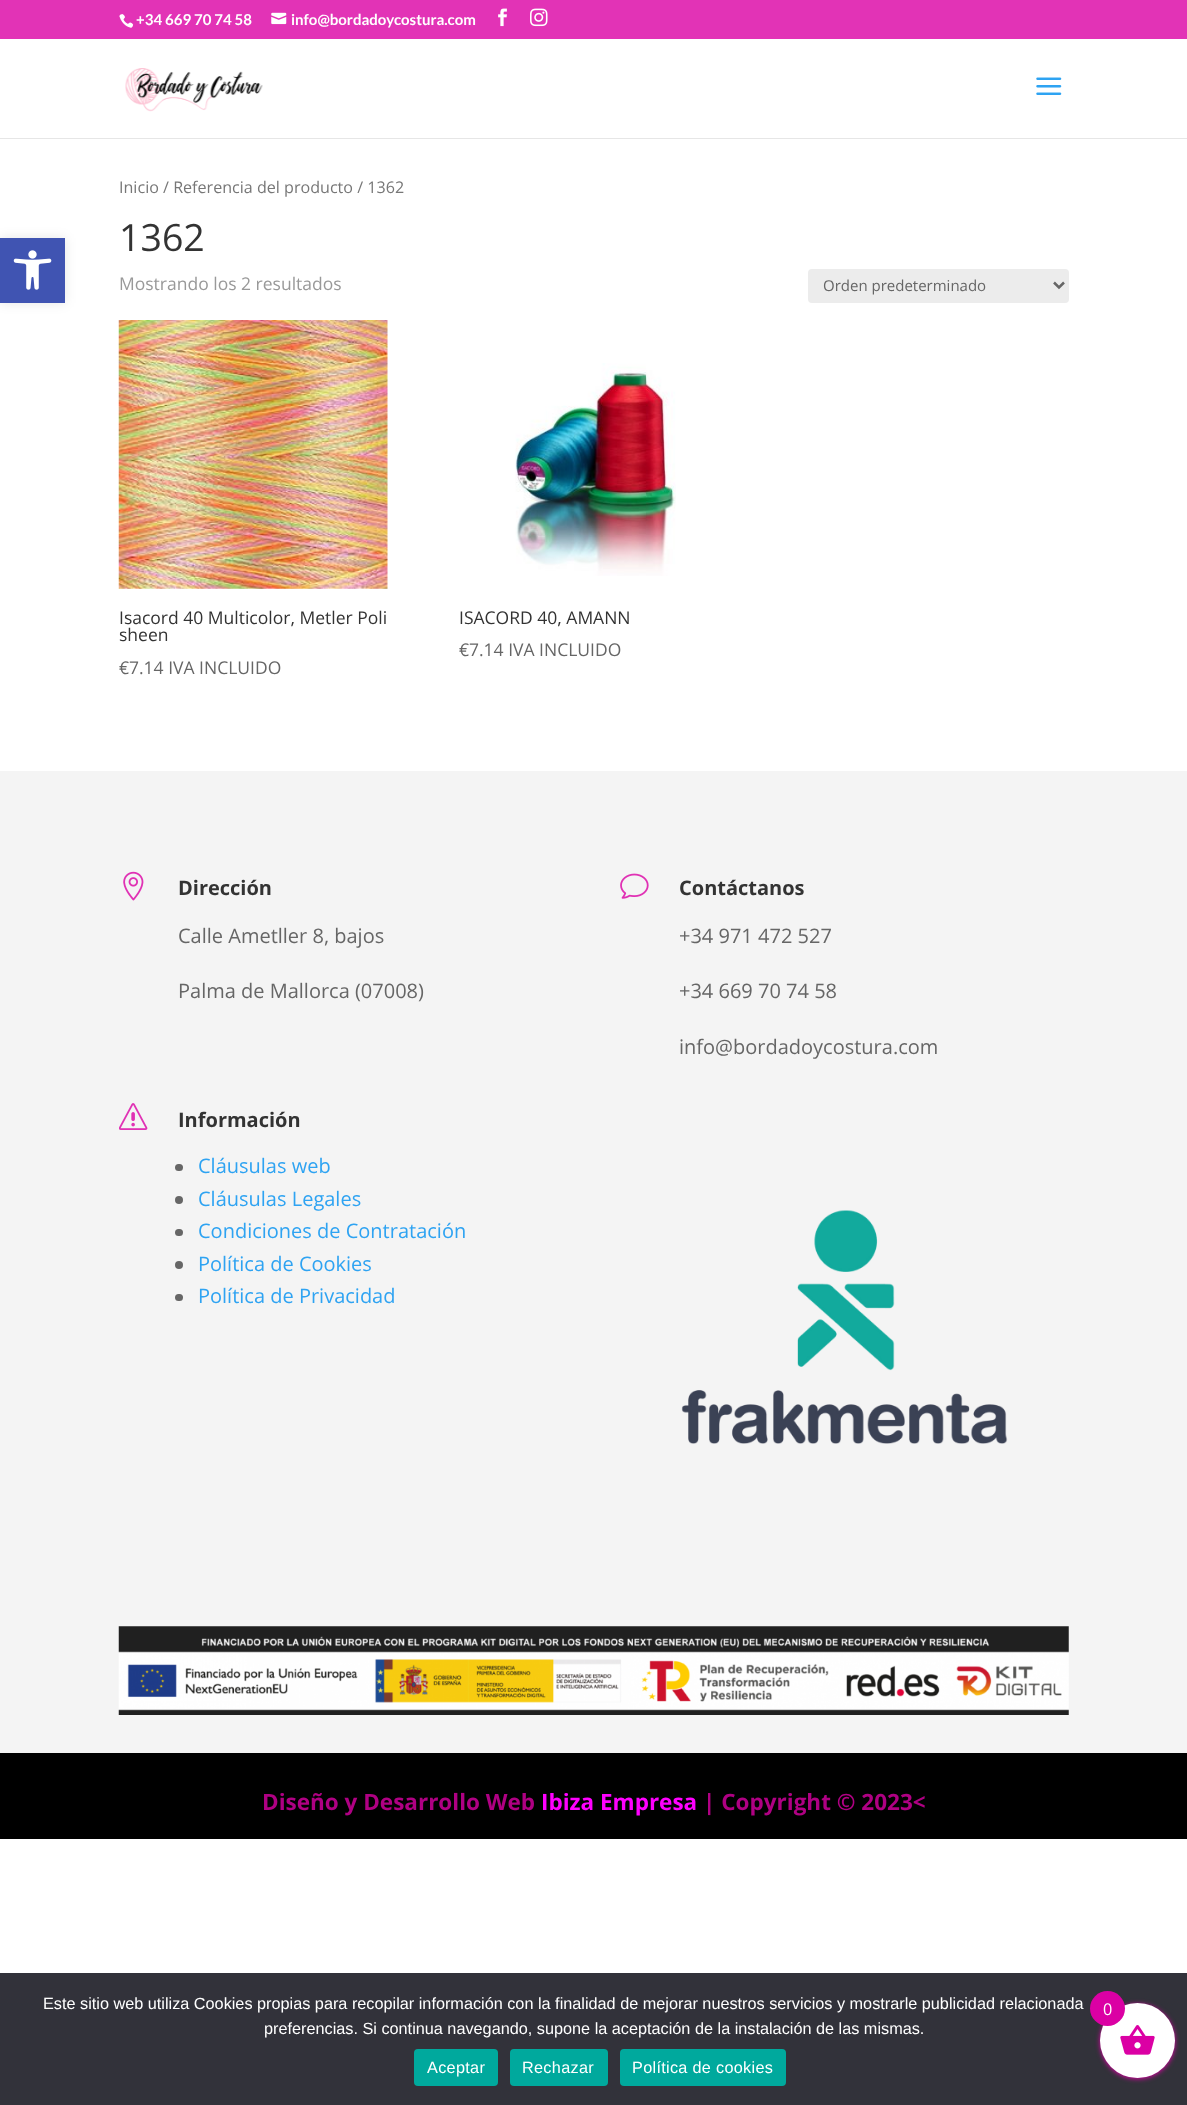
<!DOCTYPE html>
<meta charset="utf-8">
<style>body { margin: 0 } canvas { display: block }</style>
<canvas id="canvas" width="1187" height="2105"></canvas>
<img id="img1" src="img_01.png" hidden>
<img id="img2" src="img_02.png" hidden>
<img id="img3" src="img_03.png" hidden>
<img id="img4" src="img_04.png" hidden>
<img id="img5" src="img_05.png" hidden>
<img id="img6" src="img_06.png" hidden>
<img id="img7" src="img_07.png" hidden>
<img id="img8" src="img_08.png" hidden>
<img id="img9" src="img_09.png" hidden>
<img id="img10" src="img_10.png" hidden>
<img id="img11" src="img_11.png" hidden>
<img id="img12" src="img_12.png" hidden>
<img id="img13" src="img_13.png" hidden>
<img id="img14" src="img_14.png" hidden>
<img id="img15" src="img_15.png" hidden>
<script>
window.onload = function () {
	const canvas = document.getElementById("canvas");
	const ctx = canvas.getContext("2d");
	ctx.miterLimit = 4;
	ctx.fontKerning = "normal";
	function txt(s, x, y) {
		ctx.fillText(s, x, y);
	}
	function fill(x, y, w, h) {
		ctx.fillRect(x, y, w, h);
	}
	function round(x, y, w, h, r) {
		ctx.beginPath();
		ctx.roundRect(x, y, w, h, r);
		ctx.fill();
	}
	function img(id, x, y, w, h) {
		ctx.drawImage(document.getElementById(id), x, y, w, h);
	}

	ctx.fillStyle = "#FFFFFF";
	fill(0, 0, 1187, 2105);
	ctx.fillStyle = "rgba(0, 0, 0, 0.1)";
	ctx.filter = "blur(6px)";
	ctx.beginPath();
	ctx.rect(0, 238, 65, 65);
	ctx.fill();
	ctx.filter = "none";
	ctx.fillStyle = "#4054B2";
	fill(0, 238, 65, 65);
	img("img1", 13, 250, 39, 40);
	ctx.fillStyle = "#E233B6";
	fill(0, 0, 1187, 39);
	img("img2", 119, 14, 15, 14);
	img("img3", 271, 12, 16, 13);
	img("img4", 498, 8, 9, 19);
	img("img5", 530, 8, 18, 19);
	ctx.fillStyle = "#E6E6E6";
	ctx.beginPath();
	ctx.moveTo(0, 138);
	ctx.lineTo(0, 139);
	ctx.lineTo(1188, 139);
	ctx.lineTo(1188, 39);
	ctx.lineTo(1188, 138);
	ctx.closePath();
	ctx.fill();
	img("img6", 125, 68, 138, 44);
	img("img7", 1036, 77, 26, 18);
	ctx.fillStyle = "#ECECEC";
	round(808, 269, 261, 34, 4);
	ctx.beginPath();
	ctx.moveTo(1054, 282.5);
	ctx.lineTo(1059, 287.5);
	ctx.lineTo(1064, 282.5);
	ctx.strokeStyle = "#666666";
	ctx.lineWidth = 2.5;
	ctx.stroke();
	img("img8", 118, 320, 270, 269);
	img("img9", 515, 363, 161, 213);
	ctx.fillStyle = "#F4F4F4";
	fill(0, 771, 1187, 982);
	img("img10", 123, 871, 21, 30);
	img("img11", 620, 873, 29, 26);
	img("img12", 119, 1103, 29, 27);
	ctx.fillStyle = "#666666";
	round(175, 1164, 8, 7, 3.5);
	ctx.beginPath();
	ctx.arc(179, 1200, 4, 0, Math.PI * 2);
	ctx.fill();
	round(175, 1229, 8, 7, 3.5);
	ctx.beginPath();
	ctx.arc(179, 1265, 4, 0, Math.PI * 2);
	ctx.fill();
	round(175, 1294, 8, 7, 3.5);
	img("img13", 681, 1210, 327, 234);
	img("img14", 118, 1626, 951, 89);
	ctx.fillStyle = "#000000";
	fill(0, 1753, 1187, 86);
	ctx.fillStyle = "#32323A";
	fill(0, 1973, 1187, 132);
	ctx.fillStyle = "#00A99D";
	round(414, 2049, 84, 37, 4);
	round(510, 2049, 98, 37, 4);
	round(620, 2049, 166, 37, 4);
	ctx.fillStyle = "#DB00A4";
	ctx.filter = "blur(2.5px)";
	ctx.beginPath();
	ctx.roundRect(1100, 2004, 75, 75, 37.5);
	ctx.fill();
	ctx.filter = "none";
	ctx.fillStyle = "#FFFFFF";
	ctx.beginPath();
	ctx.arc(1137.5, 2040.5, 37.5, 0, Math.PI * 2);
	ctx.fill();
	img("img15", 1120, 2025, 35, 30);
	ctx.fillStyle = "#DB00A4";
	ctx.beginPath();
	ctx.arc(1107.5, 2008.5, 17.5, 0, Math.PI * 2);
	ctx.fill();
	ctx.font = "bold 15px Lato";
	ctx.fillStyle = "#FFFFFF";
	txt("+34 669 70 74 58", 136, 25);
	txt("info@bordadoycostura.com", 291, 25);
	ctx.font = "16.1px Open Sans";
	ctx.fillStyle = "#777777";
	txt("Inicio / Referencia del producto / 1362", 119, 193);
	ctx.font = "37.5px Open Sans";
	ctx.fillStyle = "#333333";
	txt("1362", 119, 251);
	ctx.font = "17.5px Open Sans";
	ctx.fillStyle = "#999999";
	txt("Mostrando los 2 resultados", 119, 290);
	ctx.font = "15px Open Sans";
	ctx.fillStyle = "#666666";
	txt("Orden predeterminado", 823, 291);
	ctx.font = "17.5px Open Sans";
	ctx.fillStyle = "#333333";
	txt("Isacord 40 Multicolor, Metler Poli", 119, 624);
	txt("sheen", 119, 641);
	ctx.fillStyle = "#666666";
	txt("€7.14 IVA INCLUIDO", 119, 674);
	ctx.fillStyle = "#333333";
	txt("ISACORD 40, AMANN", 459, 624);
	ctx.fillStyle = "#666666";
	txt("€7.14 IVA INCLUIDO", 459, 656);
	ctx.font = "bold 20px Open Sans";
	ctx.fillStyle = "#333333";
	txt("Dirección", 178, 895);
	ctx.font = "20px Open Sans";
	ctx.fillStyle = "#666666";
	txt("Calle Ametller 8, bajos", 178, 943);
	txt("Palma de Mallorca (07008)", 178, 998);
	ctx.font = "bold 20px Open Sans";
	ctx.fillStyle = "#333333";
	txt("Contáctanos", 679, 895);
	ctx.font = "20px Open Sans";
	ctx.fillStyle = "#666666";
	txt("+34 971 472 527", 679, 943);
	txt("+34 669 70 74 58", 679, 998);
	txt("info@bordadoycostura.com", 679, 1054);
	ctx.font = "bold 20px Open Sans";
	ctx.fillStyle = "#333333";
	txt("Información", 178, 1127);
	ctx.font = "20px Open Sans";
	ctx.fillStyle = "#2EA3F2";
	txt("Cláusulas web", 198, 1173);
	txt("Cláusulas Legales", 198, 1206);
	txt("Condiciones de Contratación", 198, 1238);
	txt("Política de Cookies", 198, 1271);
	txt("Política de Privacidad", 198, 1303);
	ctx.font = "bold 22.5px Open Sans";
	ctx.fillStyle = "#AF0083";
	txt("Diseño y Desarrollo Web", 262, 1810);
	ctx.fillStyle = "#FF00FF";
	txt("Ibiza Empresa", 541, 1810);
	ctx.fillStyle = "#AF0083";
	txt("| Copyright © 2023<", 703, 1810);
	ctx.font = "16.25px Liberation Sans";
	ctx.fillStyle = "#FFFFFF";
	txt("Este sitio web utiliza Cookies propias para recopilar información con la finalidad de mejorar nuestros servicios y mostrarle publicidad relacionada", 43, 2009);
	txt("preferencias. Si continua navegando, supone la aceptación de la instalación de las mismas.", 264, 2034);
	ctx.letterSpacing = "0.3px";
	txt("Aceptar", 427, 2073);
	txt("Rechazar", 522, 2073);
	txt("Política de cookies", 632, 2073);
	ctx.letterSpacing = "0px";
	ctx.font = "16.25px Open Sans";
	txt("0", 1103, 2015);
};
</script>
